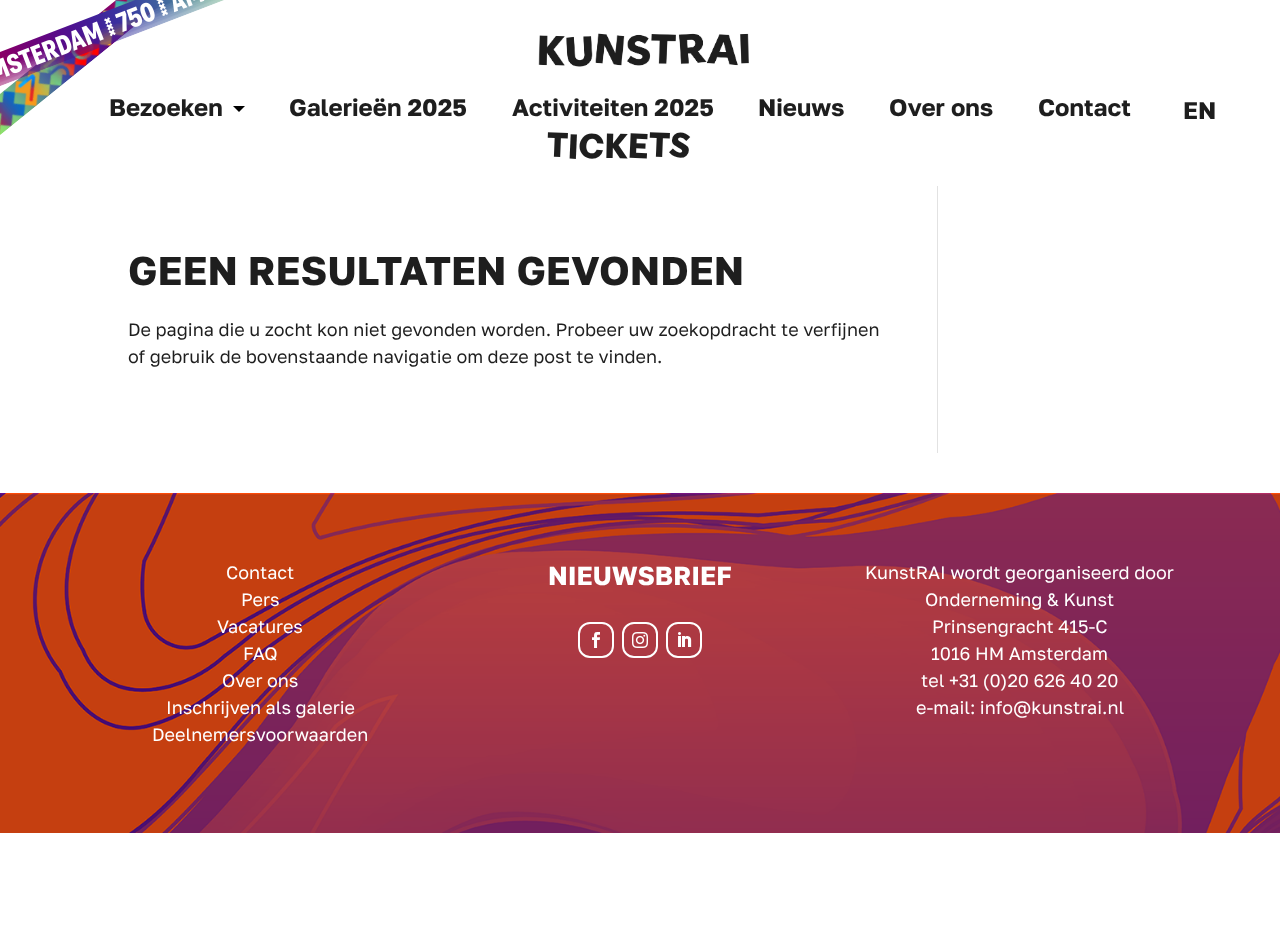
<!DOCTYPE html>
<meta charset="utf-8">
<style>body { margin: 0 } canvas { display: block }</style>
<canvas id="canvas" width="1280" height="951"></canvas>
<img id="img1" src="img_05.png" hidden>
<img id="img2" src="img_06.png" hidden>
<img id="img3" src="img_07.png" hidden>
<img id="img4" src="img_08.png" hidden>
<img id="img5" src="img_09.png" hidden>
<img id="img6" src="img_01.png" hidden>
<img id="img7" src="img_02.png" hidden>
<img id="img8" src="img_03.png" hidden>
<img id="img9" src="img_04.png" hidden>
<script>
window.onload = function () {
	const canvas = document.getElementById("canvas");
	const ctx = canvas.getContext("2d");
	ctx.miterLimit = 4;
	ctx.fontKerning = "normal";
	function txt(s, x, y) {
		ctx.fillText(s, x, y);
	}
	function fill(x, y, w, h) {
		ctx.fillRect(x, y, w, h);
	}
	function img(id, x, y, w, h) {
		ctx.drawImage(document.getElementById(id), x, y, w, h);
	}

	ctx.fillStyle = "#FFFFFF";
	fill(0, 0, 1280, 951);
	img("img1", 538, 33, 211, 34);
	ctx.fillStyle = "#000000";
	ctx.beginPath();
	ctx.moveTo(233, 106);
	ctx.lineTo(245, 106);
	ctx.lineTo(239, 112);
	ctx.closePath();
	ctx.fill();
	ctx.fillStyle = "#E2E2E2";
	fill(937, 186, 1, 267);
	img("img2", 0, 493, 1280, 340);
	ctx.beginPath();
	ctx.roundRect(579, 623, 34, 34, 11);
	ctx.strokeStyle = "#FFFFFF";
	ctx.lineWidth = 2;
	ctx.stroke();
	img("img3", 592, 632, 8, 16);
	ctx.beginPath();
	ctx.roundRect(623, 623, 34, 34, 11);
	ctx.stroke();
	img("img4", 632, 632, 16, 16);
	ctx.beginPath();
	ctx.roundRect(667, 623, 34, 34, 11);
	ctx.stroke();
	img("img5", 678, 632, 14, 15);
	ctx.font = "bold 24px Golos Text";
	ctx.fillStyle = "#1E1E1E";
	txt("Bezoeken", 109, 116);
	img("img6", 0, 0, 160, 135);
	img("img7", 0, 0, 150, 134);
	img("img8", 0, 0, 224, 86);
	img("img9", 0, 0, 205, 77);
	txt("Galerieën 2025", 289, 116);
	txt("Activiteiten 2025", 512, 116);
	txt("Nieuws", 758, 116);
	txt("Over ons", 889, 116);
	txt("Contact", 1038, 116);
	txt("EN", 1183, 119);
	ctx.font = "bold 34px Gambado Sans";
	txt("TICKETS", 547, 157);
	ctx.font = "bold 40px Golos Text";
	txt("GEEN RESULTATEN GEVONDEN", 128, 285);
	ctx.font = "18px Golos Text";
	txt("De pagina die u zocht kon niet gevonden worden. Probeer uw zoekopdracht te verfijnen", 128, 336);
	txt("of gebruik de bovenstaande navigatie om deze post te vinden.", 128, 363);
	ctx.fillStyle = "#FFFFFF";
	txt("Contact", 226, 579);
	txt("Pers", 241, 606);
	txt("Vacatures", 217, 633);
	txt("FAQ", 243, 660);
	txt("Over ons", 222, 687);
	txt("Inschrijven als galerie", 166, 714);
	txt("Deelnemersvoorwaarden", 152, 741);
	ctx.font = "bold 26px Golos Text";
	txt("NIEUWSBRIEF", 548, 585);
	ctx.font = "18px Golos Text";
	txt("KunstRAI wordt georganiseerd door", 865, 579);
	txt("Onderneming & Kunst", 925, 606);
	txt("Prinsengracht 415-C", 932, 633);
	txt("1016 HM Amsterdam", 931, 660);
	txt("tel +31 (0)20 626 40 20", 921, 687);
	txt("e-mail: info@kunstrai.nl", 916, 714);
};
</script>
